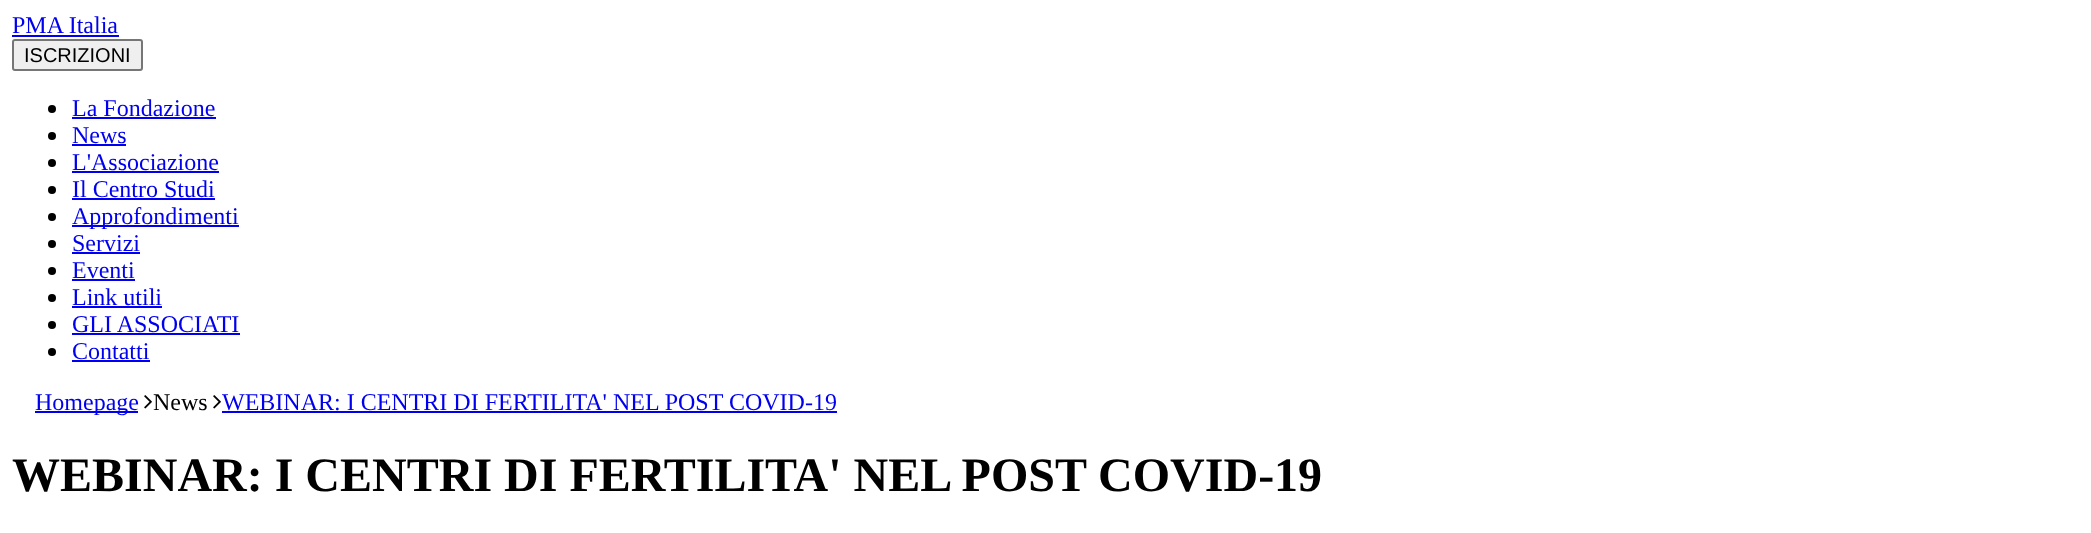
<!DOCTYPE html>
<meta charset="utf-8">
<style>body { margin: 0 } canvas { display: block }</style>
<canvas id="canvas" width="2091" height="533"></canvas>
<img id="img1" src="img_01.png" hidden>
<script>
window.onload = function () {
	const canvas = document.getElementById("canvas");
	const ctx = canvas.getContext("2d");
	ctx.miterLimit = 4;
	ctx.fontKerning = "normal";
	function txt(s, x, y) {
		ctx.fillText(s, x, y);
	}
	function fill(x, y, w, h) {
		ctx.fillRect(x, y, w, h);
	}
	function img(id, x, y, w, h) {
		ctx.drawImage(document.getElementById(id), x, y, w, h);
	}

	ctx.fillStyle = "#FFFFFF";
	fill(0, 0, 2091, 533);
	ctx.fillStyle = "#0000EE";
	fill(12, 35, 107, 2);
	ctx.fillStyle = "#EFEFEF";
	ctx.beginPath();
	ctx.roundRect(13, 40, 129, 30, 2);
	ctx.fill();
	ctx.strokeStyle = "#767676";
	ctx.lineWidth = 2;
	ctx.stroke();
	ctx.fillStyle = "#000000";
	ctx.beginPath();
	ctx.arc(52, 109, 4, 0, Math.PI * 2);
	ctx.fill();
	ctx.fillStyle = "#0000EE";
	fill(72, 117, 144, 2);
	ctx.fillStyle = "#000000";
	ctx.beginPath();
	ctx.arc(52, 136, 4, 0, Math.PI * 2);
	ctx.fill();
	ctx.fillStyle = "#0000EE";
	fill(72, 144, 54, 2);
	ctx.fillStyle = "#000000";
	ctx.beginPath();
	ctx.arc(52, 163, 4, 0, Math.PI * 2);
	ctx.fill();
	ctx.fillStyle = "#0000EE";
	fill(72, 171, 147, 2);
	ctx.fillStyle = "#000000";
	ctx.beginPath();
	ctx.arc(52, 190, 4, 0, Math.PI * 2);
	ctx.fill();
	ctx.fillStyle = "#0000EE";
	fill(72, 198, 143, 2);
	ctx.fillStyle = "#000000";
	ctx.beginPath();
	ctx.arc(52, 217, 4, 0, Math.PI * 2);
	ctx.fill();
	ctx.fillStyle = "#0000EE";
	fill(72, 225, 167, 2);
	ctx.fillStyle = "#000000";
	ctx.beginPath();
	ctx.arc(52, 244, 4, 0, Math.PI * 2);
	ctx.fill();
	ctx.fillStyle = "#0000EE";
	fill(72, 252, 68, 2);
	ctx.fillStyle = "#000000";
	ctx.beginPath();
	ctx.arc(52, 271, 4, 0, Math.PI * 2);
	ctx.fill();
	ctx.fillStyle = "#0000EE";
	fill(72, 279, 63, 2);
	ctx.fillStyle = "#000000";
	ctx.beginPath();
	ctx.arc(52, 298, 4, 0, Math.PI * 2);
	ctx.fill();
	ctx.fillStyle = "#0000EE";
	fill(72, 306, 90, 2);
	ctx.fillStyle = "#000000";
	ctx.beginPath();
	ctx.arc(52, 325, 4, 0, Math.PI * 2);
	ctx.fill();
	ctx.fillStyle = "#0000EE";
	fill(72, 333, 168, 2);
	ctx.fillStyle = "#000000";
	ctx.beginPath();
	ctx.arc(52, 352, 4, 0, Math.PI * 2);
	ctx.fill();
	ctx.fillStyle = "#0000EE";
	fill(72, 360, 78, 2);
	fill(35, 411, 103, 2);
	img("img1", 144, 395, 8, 14);
	img("img1", 213, 395, 8, 14);
	fill(222, 411, 615, 2);
	ctx.font = "24px Liberation Serif";
	txt("PMA Italia", 12, 33);
	ctx.font = "20px Liberation Sans";
	ctx.fillStyle = "#000000";
	txt("ISCRIZIONI", 24, 62);
	ctx.font = "24px Liberation Serif";
	ctx.fillStyle = "#0000EE";
	txt("La Fondazione", 72, 116);
	txt("News", 72, 143);
	txt("L'Associazione", 72, 170);
	txt("Il Centro Studi", 72, 197);
	txt("Approfondimenti", 72, 224);
	txt("Servizi", 72, 251);
	txt("Eventi", 72, 278);
	txt("Link utili", 72, 305);
	txt("GLI ASSOCIATI", 72, 332);
	txt("Contatti", 72, 359);
	txt("Homepage", 35, 410);
	ctx.fillStyle = "#000000";
	txt("News", 153, 410);
	ctx.fillStyle = "#0000EE";
	txt("WEBINAR: I CENTRI DI FERTILITA' NEL POST COVID-19", 222, 410);
	ctx.font = "bold 48px Liberation Serif";
	ctx.fillStyle = "#000000";
	txt("WEBINAR: I CENTRI DI FERTILITA' NEL POST COVID-19", 12, 491);
};
</script>
